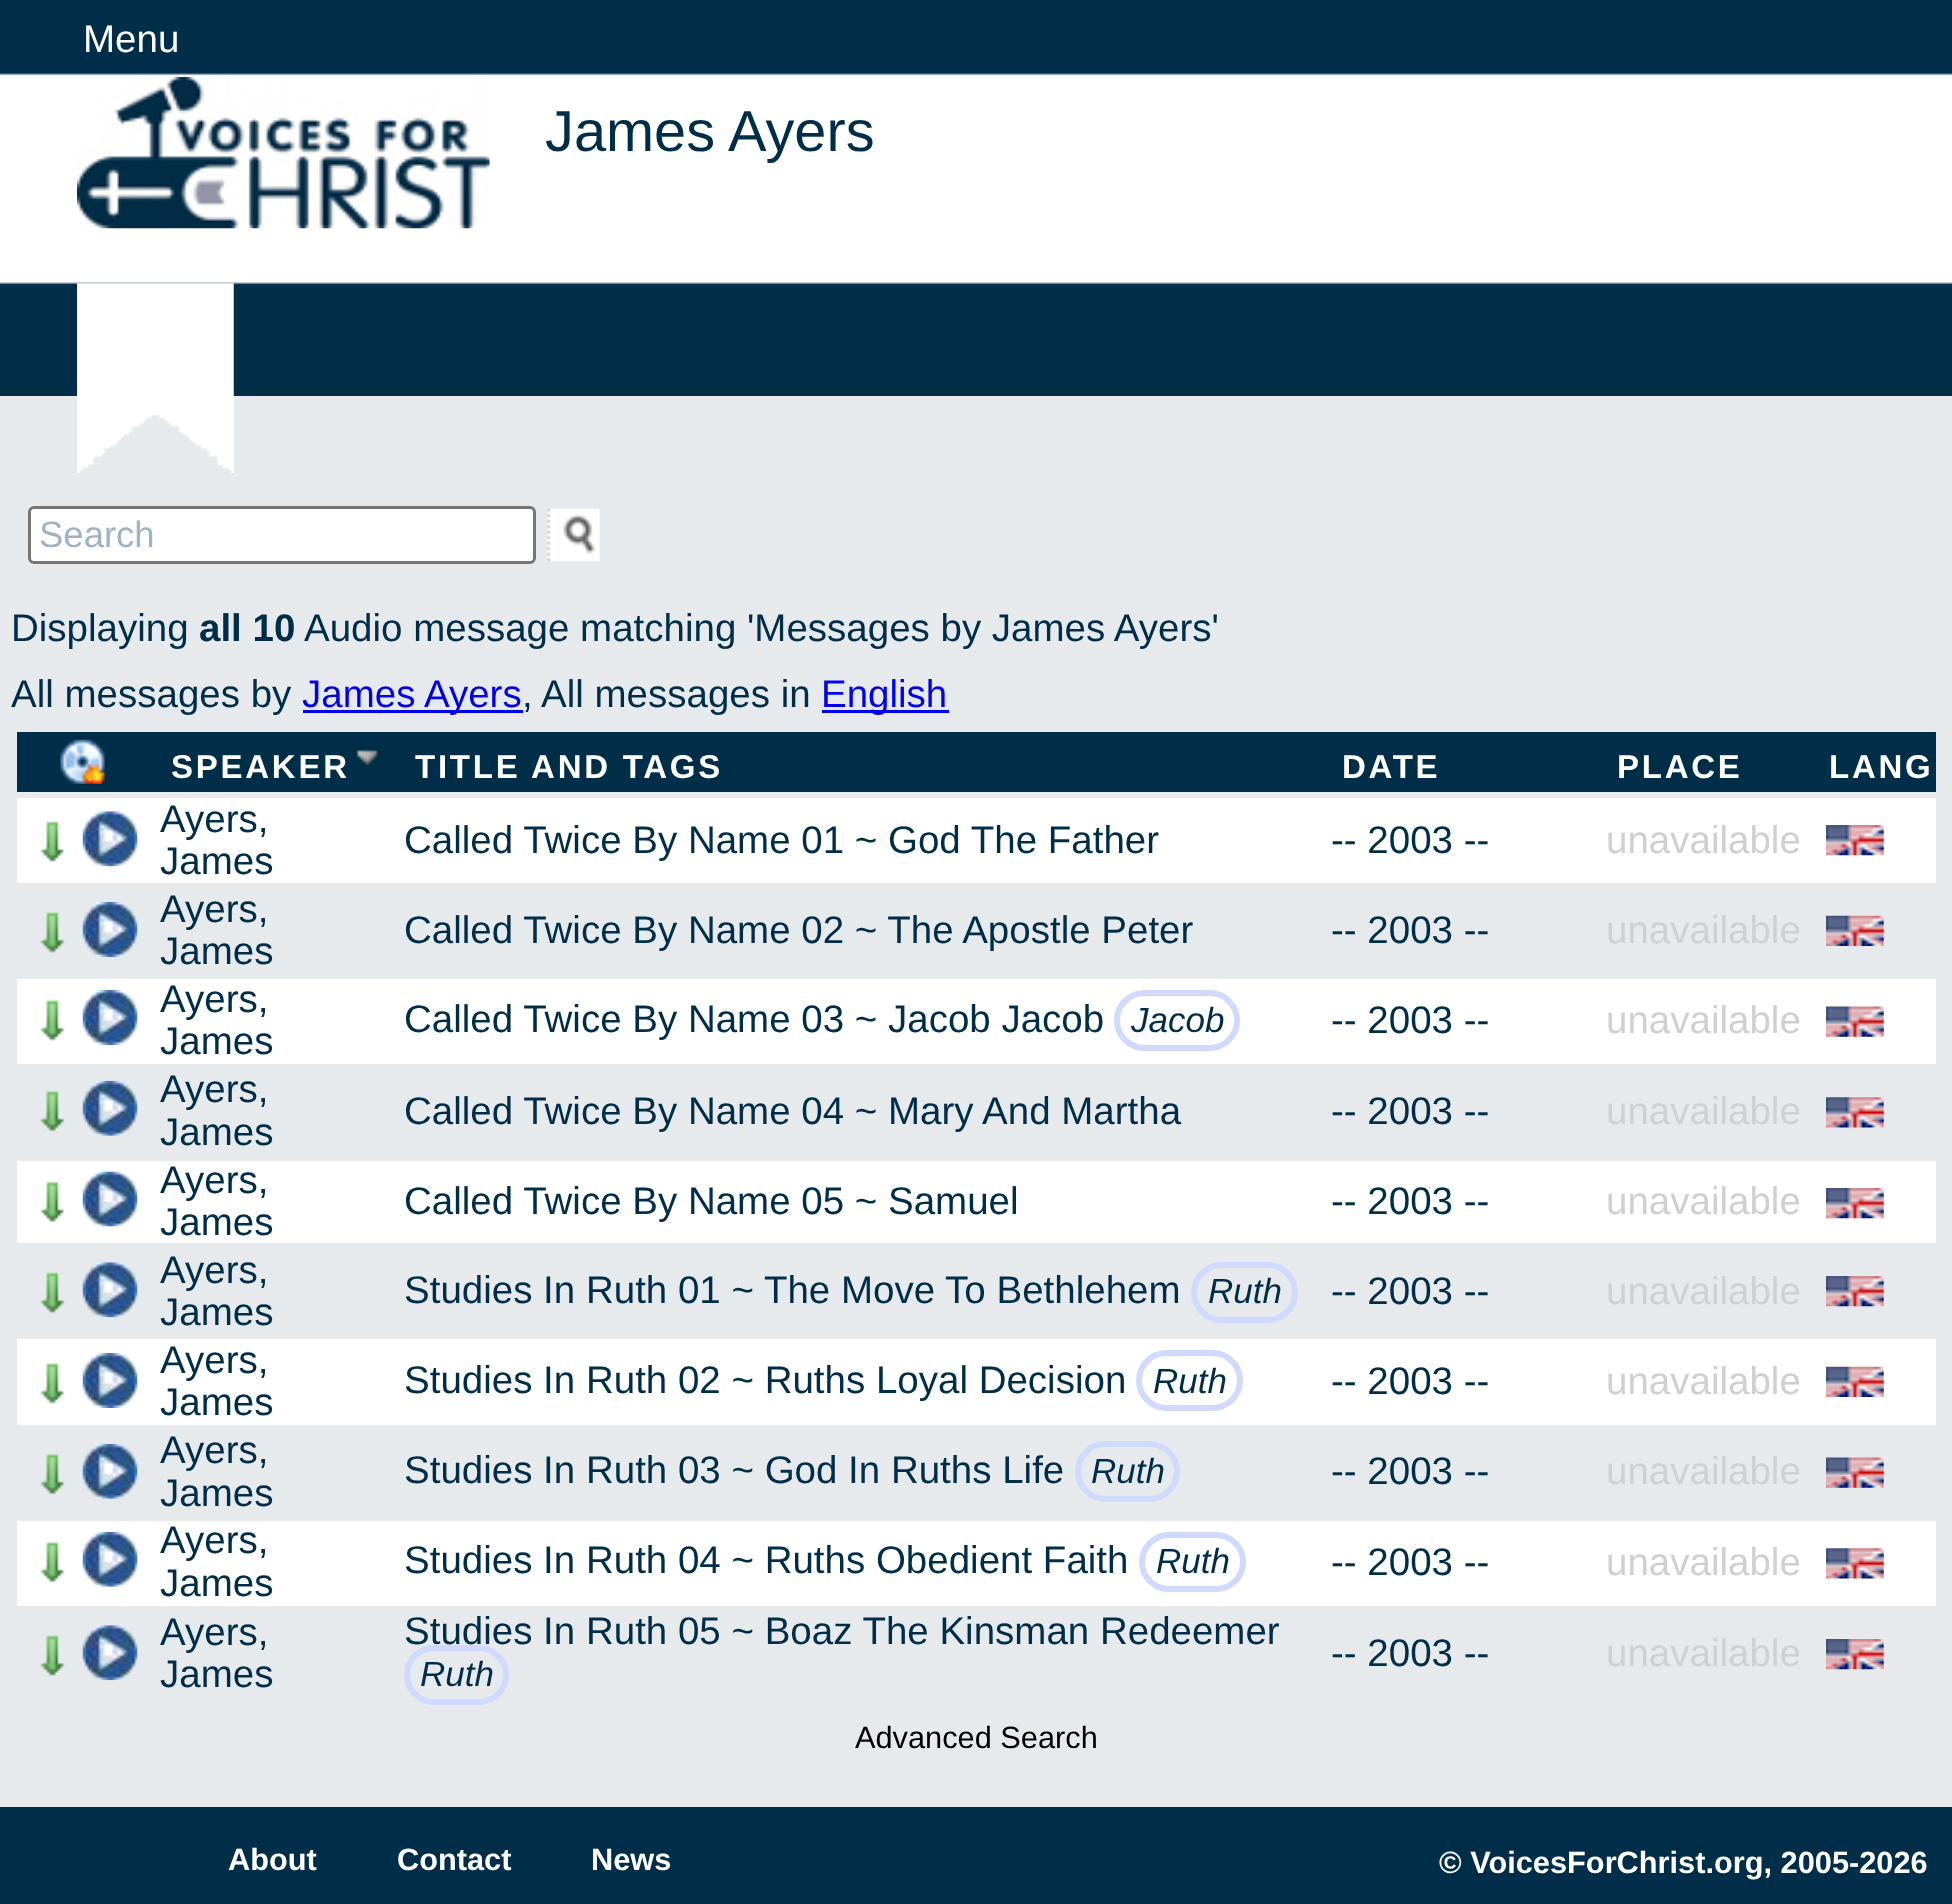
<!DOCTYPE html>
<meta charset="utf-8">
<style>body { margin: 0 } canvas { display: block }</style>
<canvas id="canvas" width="1952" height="1904"></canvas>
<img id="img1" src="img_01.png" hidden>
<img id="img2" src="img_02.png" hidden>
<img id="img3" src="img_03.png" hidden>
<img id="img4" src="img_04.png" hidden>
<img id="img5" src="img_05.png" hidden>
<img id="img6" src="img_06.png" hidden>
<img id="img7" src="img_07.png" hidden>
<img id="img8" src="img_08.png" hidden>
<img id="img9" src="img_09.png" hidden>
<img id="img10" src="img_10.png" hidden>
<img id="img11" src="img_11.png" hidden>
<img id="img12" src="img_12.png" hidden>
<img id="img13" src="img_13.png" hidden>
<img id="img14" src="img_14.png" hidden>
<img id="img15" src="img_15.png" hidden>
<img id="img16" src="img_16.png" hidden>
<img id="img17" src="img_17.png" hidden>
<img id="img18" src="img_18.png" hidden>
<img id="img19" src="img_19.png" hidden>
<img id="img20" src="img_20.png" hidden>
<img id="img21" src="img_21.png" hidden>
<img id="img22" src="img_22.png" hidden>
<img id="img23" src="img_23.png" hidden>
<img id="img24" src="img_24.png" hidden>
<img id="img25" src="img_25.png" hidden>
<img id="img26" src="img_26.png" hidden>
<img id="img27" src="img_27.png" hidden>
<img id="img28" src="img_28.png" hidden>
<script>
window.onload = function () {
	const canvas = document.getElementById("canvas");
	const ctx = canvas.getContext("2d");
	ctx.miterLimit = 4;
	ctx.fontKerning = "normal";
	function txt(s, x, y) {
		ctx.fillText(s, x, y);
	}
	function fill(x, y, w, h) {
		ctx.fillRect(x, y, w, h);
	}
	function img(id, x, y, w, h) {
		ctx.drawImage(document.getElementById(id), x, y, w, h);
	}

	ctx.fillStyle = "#E6EAED";
	fill(0, 0, 1952, 1904);
	img("img1", 0, 0, 1952, 396);
	img("img2", 77, 283, 157, 190);
	img("img3", 77, 77, 413, 152);
	ctx.fillStyle = "#FFFFFF";
	ctx.beginPath();
	ctx.roundRect(29.5, 507.5, 505, 55, 4.5);
	ctx.fill();
	ctx.strokeStyle = "#767676";
	ctx.lineWidth = 3;
	ctx.stroke();
	ctx.fillStyle = "#EFEFEF";
	fill(547, 509, 53, 52);
	img("img4", 547, 508, 53, 53);
	ctx.fillStyle = "#0000EE";
	fill(303, 710, 220, 3);
	fill(822, 710, 127, 3);
	ctx.fillStyle = "#002D47";
	fill(17, 732, 1919, 60);
	img("img5", 60, 739, 45, 45);
	img("img6", 356, 750, 22, 16);
	ctx.fillStyle = "#FFFFFF";
	fill(17, 798, 1919, 85);
	img("img7", 40, 821, 25, 41);
	img("img8", 82, 811, 56, 56);
	img("img9", 1826, 825, 58, 31);
	img("img10", 40, 912, 25, 41);
	img("img11", 82, 902, 56, 55);
	img("img12", 1826, 915, 58, 31);
	fill(17, 979, 1919, 85);
	img("img13", 40, 1000, 25, 41);
	img("img14", 82, 990, 56, 55);
	ctx.beginPath();
	ctx.roundRect(1117, 993, 120, 55, 27.5);
	ctx.strokeStyle = "#D0DAFF";
	ctx.lineWidth = 6;
	ctx.stroke();
	img("img15", 1826, 1006, 58, 31);
	img("img16", 40, 1091, 25, 41);
	img("img17", 82, 1080, 56, 56);
	img("img18", 1826, 1097, 58, 31);
	fill(17, 1161, 1919, 82);
	img("img19", 40, 1181, 25, 41);
	img("img20", 82, 1171, 56, 56);
	img("img9", 1826, 1188, 58, 31);
	img("img21", 40, 1272, 25, 41);
	img("img22", 82, 1262, 56, 56);
	ctx.beginPath();
	ctx.roundRect(1194, 1265, 101, 55, 27.5);
	ctx.stroke();
	img("img23", 1826, 1276, 58, 31);
	fill(17, 1339, 1919, 86);
	img("img13", 40, 1363, 25, 41);
	img("img14", 82, 1353, 56, 55);
	ctx.beginPath();
	ctx.roundRect(1139, 1353, 101, 55, 27.5);
	ctx.stroke();
	img("img24", 1826, 1366, 58, 31);
	img("img16", 40, 1454, 25, 41);
	img("img17", 82, 1443, 56, 56);
	ctx.beginPath();
	ctx.roundRect(1078, 1444, 99, 55, 27.5);
	ctx.stroke();
	img("img25", 1826, 1457, 58, 31);
	fill(17, 1521, 1919, 85);
	img("img26", 40, 1542, 25, 41);
	img("img27", 82, 1531, 56, 56);
	ctx.beginPath();
	ctx.roundRect(1142, 1535, 101, 54, 27);
	ctx.stroke();
	img("img28", 1826, 1548, 58, 31);
	img("img21", 40, 1635, 25, 41);
	img("img22", 82, 1625, 56, 56);
	ctx.beginPath();
	ctx.roundRect(407, 1648, 99, 54, 27);
	ctx.stroke();
	img("img23", 1826, 1639, 58, 31);
	ctx.fillStyle = "#002D47";
	fill(0, 1807, 1952, 97);
	ctx.font = "38.5px Liberation Sans";
	ctx.fillStyle = "#FFFFFF";
	txt("Menu", 83, 52);
	ctx.font = "57.75px Liberation Sans";
	ctx.fillStyle = "#002D47";
	txt("James Ayers", 545, 151);
	ctx.font = "36.5px Liberation Sans";
	ctx.fillStyle = "#A1B2C3";
	txt("Search", 39, 547);
	ctx.font = "38.5px Liberation Sans";
	ctx.fillStyle = "#002D47";
	txt("Displaying", 11, 641);
	ctx.font = "bold 38.5px Liberation Sans";
	txt("all 10", 199, 641);
	ctx.font = "38.5px Liberation Sans";
	txt("Audio message matching 'Messages by James Ayers'", 304, 641);
	txt("All messages by", 11, 707);
	ctx.fillStyle = "#0000EE";
	txt("James Ayers", 302, 707);
	ctx.fillStyle = "#002D47";
	txt(",", 522, 707);
	txt("All messages in", 541, 707);
	ctx.fillStyle = "#0000EE";
	txt("English", 821, 707);
	ctx.letterSpacing = "2.75px";
	ctx.font = "bold 33px Liberation Sans";
	ctx.fillStyle = "#FFFFFF";
	txt("SPEAKER", 171, 778);
	txt("TITLE AND TAGS", 415, 778);
	txt("DATE", 1342, 778);
	txt("PLACE", 1617, 778);
	txt("LANG", 1829, 778);
	ctx.letterSpacing = "0px";
	ctx.font = "38.5px Liberation Sans";
	ctx.fillStyle = "#002D47";
	txt("Ayers,", 160, 832);
	txt("James", 160, 874);
	txt("Called Twice By Name 01 ~ God The Father", 404, 853);
	txt("-- 2003 --", 1331, 853);
	ctx.fillStyle = "#D0D0D0";
	txt("unavailable", 1606, 853);
	ctx.fillStyle = "#002D47";
	txt("Ayers,", 160, 922);
	txt("James", 160, 964);
	txt("Called Twice By Name 02 ~ The Apostle Peter", 404, 943);
	txt("-- 2003 --", 1331, 943);
	ctx.fillStyle = "#D0D0D0";
	txt("unavailable", 1606, 943);
	ctx.fillStyle = "#002D47";
	txt("Ayers,", 160, 1012);
	txt("James", 160, 1054);
	txt("Called Twice By Name 03 ~ Jacob Jacob", 404, 1032);
	ctx.font = "italic 35px Liberation Sans";
	txt("Jacob", 1131, 1032);
	ctx.font = "38.5px Liberation Sans";
	txt("-- 2003 --", 1331, 1033);
	ctx.fillStyle = "#D0D0D0";
	txt("unavailable", 1606, 1033);
	ctx.fillStyle = "#002D47";
	txt("Ayers,", 160, 1102);
	txt("James", 160, 1145);
	txt("Called Twice By Name 04 ~ Mary And Martha", 404, 1124);
	txt("-- 2003 --", 1331, 1124);
	ctx.fillStyle = "#D0D0D0";
	txt("unavailable", 1606, 1124);
	ctx.fillStyle = "#002D47";
	txt("Ayers,", 160, 1193);
	txt("James", 160, 1235);
	txt("Called Twice By Name 05 ~ Samuel", 404, 1214);
	txt("-- 2003 --", 1331, 1214);
	ctx.fillStyle = "#D0D0D0";
	txt("unavailable", 1606, 1214);
	ctx.fillStyle = "#002D47";
	txt("Ayers,", 160, 1283);
	txt("James", 160, 1325);
	txt("Studies In Ruth 01 ~ The Move To Bethlehem", 404, 1303);
	ctx.font = "italic 35px Liberation Sans";
	txt("Ruth", 1208, 1303);
	ctx.font = "38.5px Liberation Sans";
	txt("-- 2003 --", 1331, 1304);
	ctx.fillStyle = "#D0D0D0";
	txt("unavailable", 1606, 1304);
	ctx.fillStyle = "#002D47";
	txt("Ayers,", 160, 1373);
	txt("James", 160, 1415);
	txt("Studies In Ruth 02 ~ Ruths Loyal Decision", 404, 1393);
	ctx.font = "italic 35px Liberation Sans";
	txt("Ruth", 1153, 1393);
	ctx.font = "38.5px Liberation Sans";
	txt("-- 2003 --", 1331, 1394);
	ctx.fillStyle = "#D0D0D0";
	txt("unavailable", 1606, 1394);
	ctx.fillStyle = "#002D47";
	txt("Ayers,", 160, 1463);
	txt("James", 160, 1506);
	txt("Studies In Ruth 03 ~ God In Ruths Life", 404, 1483);
	ctx.font = "italic 35px Liberation Sans";
	txt("Ruth", 1091, 1483);
	ctx.font = "38.5px Liberation Sans";
	txt("-- 2003 --", 1331, 1484);
	ctx.fillStyle = "#D0D0D0";
	txt("unavailable", 1606, 1484);
	ctx.fillStyle = "#002D47";
	txt("Ayers,", 160, 1553);
	txt("James", 160, 1596);
	txt("Studies In Ruth 04 ~ Ruths Obedient Faith", 404, 1573);
	ctx.font = "italic 35px Liberation Sans";
	txt("Ruth", 1156, 1573);
	ctx.font = "38.5px Liberation Sans";
	txt("-- 2003 --", 1331, 1575);
	ctx.fillStyle = "#D0D0D0";
	txt("unavailable", 1606, 1575);
	ctx.fillStyle = "#002D47";
	txt("Ayers,", 160, 1645);
	txt("James", 160, 1687);
	txt("Studies In Ruth 05 ~ Boaz The Kinsman Redeemer", 404, 1644);
	ctx.font = "italic 35px Liberation Sans";
	txt("Ruth", 420, 1686);
	ctx.font = "38.5px Liberation Sans";
	txt("-- 2003 --", 1331, 1666);
	ctx.fillStyle = "#D0D0D0";
	txt("unavailable", 1606, 1666);
	ctx.font = "30.75px Liberation Sans";
	ctx.fillStyle = "#000000";
	txt("Advanced Search", 855, 1748);
	ctx.font = "bold 30.75px Liberation Sans";
	ctx.fillStyle = "#FFFFFF";
	txt("About", 228, 1870);
	txt("Contact", 397, 1870);
	txt("News", 591, 1870);
	txt("© VoicesForChrist.org, 2005-2026", 1439, 1873);
};
</script>
